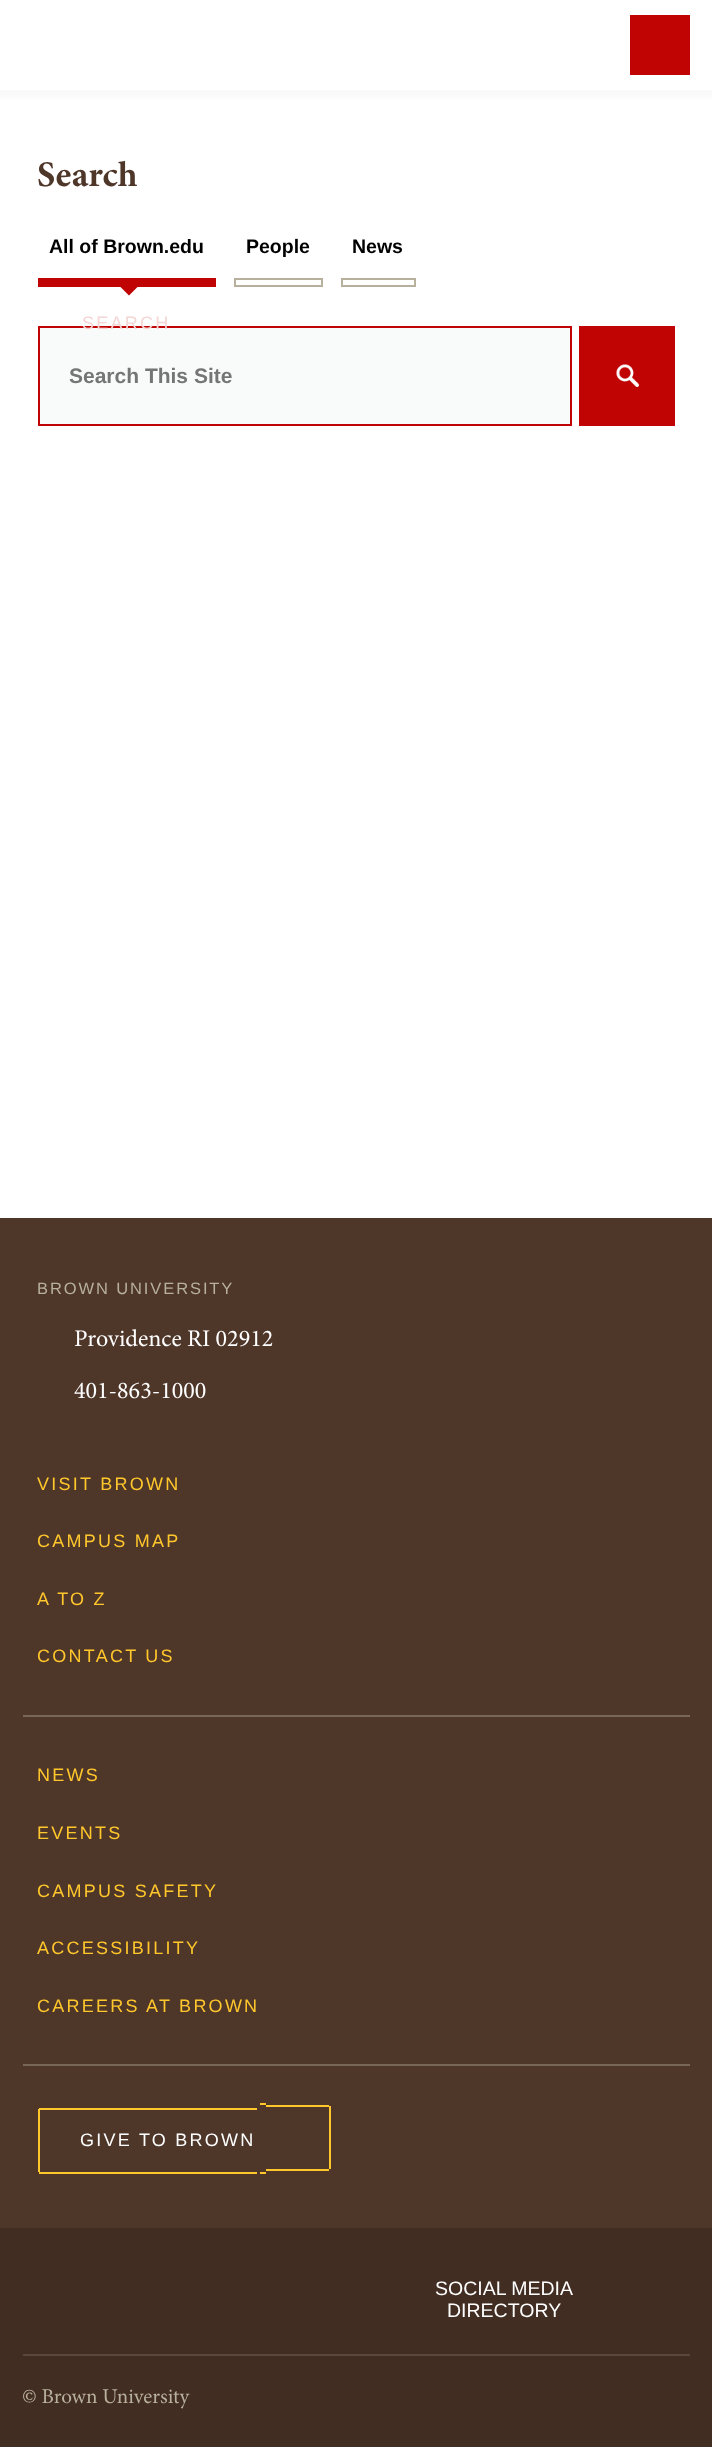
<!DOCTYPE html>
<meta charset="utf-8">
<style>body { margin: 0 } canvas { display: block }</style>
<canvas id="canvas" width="712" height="2447"></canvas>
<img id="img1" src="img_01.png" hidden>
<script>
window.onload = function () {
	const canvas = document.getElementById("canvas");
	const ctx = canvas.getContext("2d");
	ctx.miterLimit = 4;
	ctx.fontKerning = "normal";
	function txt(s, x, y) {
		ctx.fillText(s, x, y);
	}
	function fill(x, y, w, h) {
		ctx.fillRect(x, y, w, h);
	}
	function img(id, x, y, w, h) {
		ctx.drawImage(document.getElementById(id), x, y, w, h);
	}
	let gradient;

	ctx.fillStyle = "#FFFFFF";
	fill(0, 0, 712, 2447);
	ctx.fillStyle = "#C00404";
	fill(630, 15, 60, 60);
	gradient = ctx.createLinearGradient(356, 90, 356, 105);
	gradient.addColorStop(0, "#F9F9F9");
	gradient.addColorStop(1, "#FFFFFF");
	ctx.fillStyle = gradient;
	fill(0, 90, 712, 9);
	ctx.fillStyle = "#C00404";
	ctx.beginPath();
	ctx.moveTo(120, 286.5);
	ctx.lineTo(138, 286.5);
	ctx.lineTo(129, 295.5);
	ctx.closePath();
	ctx.fill();
	fill(38, 278, 178, 9);
	ctx.strokeStyle = "#B7B09C";
	ctx.lineWidth = 2;
	ctx.strokeRect(235, 279, 87, 7);
	ctx.strokeRect(342, 279, 73, 7);
	ctx.fillStyle = "#F9FAFA";
	fill(40, 328, 530, 96);
	ctx.strokeStyle = "#C00404";
	ctx.strokeRect(39, 327, 635, 98);
	ctx.fillStyle = "#C00404";
	fill(570, 326, 2, 100);
	fill(579, 328, 94, 96);
	img("img1", 616, 364, 23, 23);
	ctx.fillStyle = "#FFFFFF";
	fill(572, 326, 7, 100);
	ctx.fillStyle = "#4E3629";
	fill(0, 1218, 712, 1010);
	ctx.fillStyle = "#786757";
	fill(23, 1715, 667, 2);
	fill(23, 2064, 667, 2);
	ctx.fillStyle = "#FFC72C";
	fill(39, 2108, 218, 2);
	fill(39, 2172, 218, 2);
	fill(38, 2109, 2, 63);
	fill(260, 2103, 6, 2);
	fill(260, 2172, 6, 2);
	fill(266, 2105, 63, 2);
	fill(329, 2106, 2, 63);
	fill(266, 2169, 63, 2);
	ctx.fillStyle = "#422D22";
	fill(0, 2228, 712, 219);
	ctx.fillStyle = "#59473A";
	fill(23, 2354, 667, 2);
	ctx.font = "bold 36px Minion";
	ctx.fillStyle = "#4E3629";
	txt("Search", 37, 186);
	ctx.font = "bold 19.5px Liberation Sans";
	ctx.fillStyle = "#000000";
	txt("All of Brown.edu", 49, 253);
	txt("People", 246, 253);
	txt("News", 352, 253);
	ctx.font = "bold 21px Liberation Sans";
	ctx.fillStyle = "#757575";
	txt("Search This Site", 69, 383);
	ctx.letterSpacing = "2.25px";
	ctx.font = "18px Liberation Sans";
	ctx.fillStyle = "#F4D6D6";
	txt("SEARCH", 82, 329);
	ctx.letterSpacing = "1.9px";
	ctx.font = "16.5px Liberation Sans";
	ctx.fillStyle = "#B7B09C";
	txt("BROWN UNIVERSITY", 37, 1294);
	ctx.letterSpacing = "0px";
	ctx.font = "24px Minion";
	ctx.fillStyle = "#FFFFFF";
	txt("Providence RI 02912", 74, 1346);
	txt("401-863-1000", 74, 1398);
	ctx.letterSpacing = "2.25px";
	ctx.font = "18px Liberation Sans";
	ctx.fillStyle = "#FFC72C";
	txt("VISIT BROWN", 37, 1490);
	txt("CAMPUS MAP", 37, 1547);
	txt("A TO Z", 37, 1605);
	txt("CONTACT US", 37, 1662);
	txt("NEWS", 37, 1781);
	txt("EVENTS", 37, 1839);
	txt("CAMPUS SAFETY", 37, 1897);
	txt("ACCESSIBILITY", 37, 1954);
	txt("CAREERS AT BROWN", 37, 2012);
	ctx.fillStyle = "#FFFFFF";
	txt("GIVE TO BROWN", 80, 2146);
	ctx.letterSpacing = "0px";
	ctx.font = "19.5px Liberation Sans";
	txt("SOCIAL MEDIA", 435, 2295);
	txt("DIRECTORY", 447, 2317);
	ctx.font = "21px Minion";
	ctx.fillStyle = "#B7B09C";
	txt("© Brown University", 22, 2403);
};
</script>
